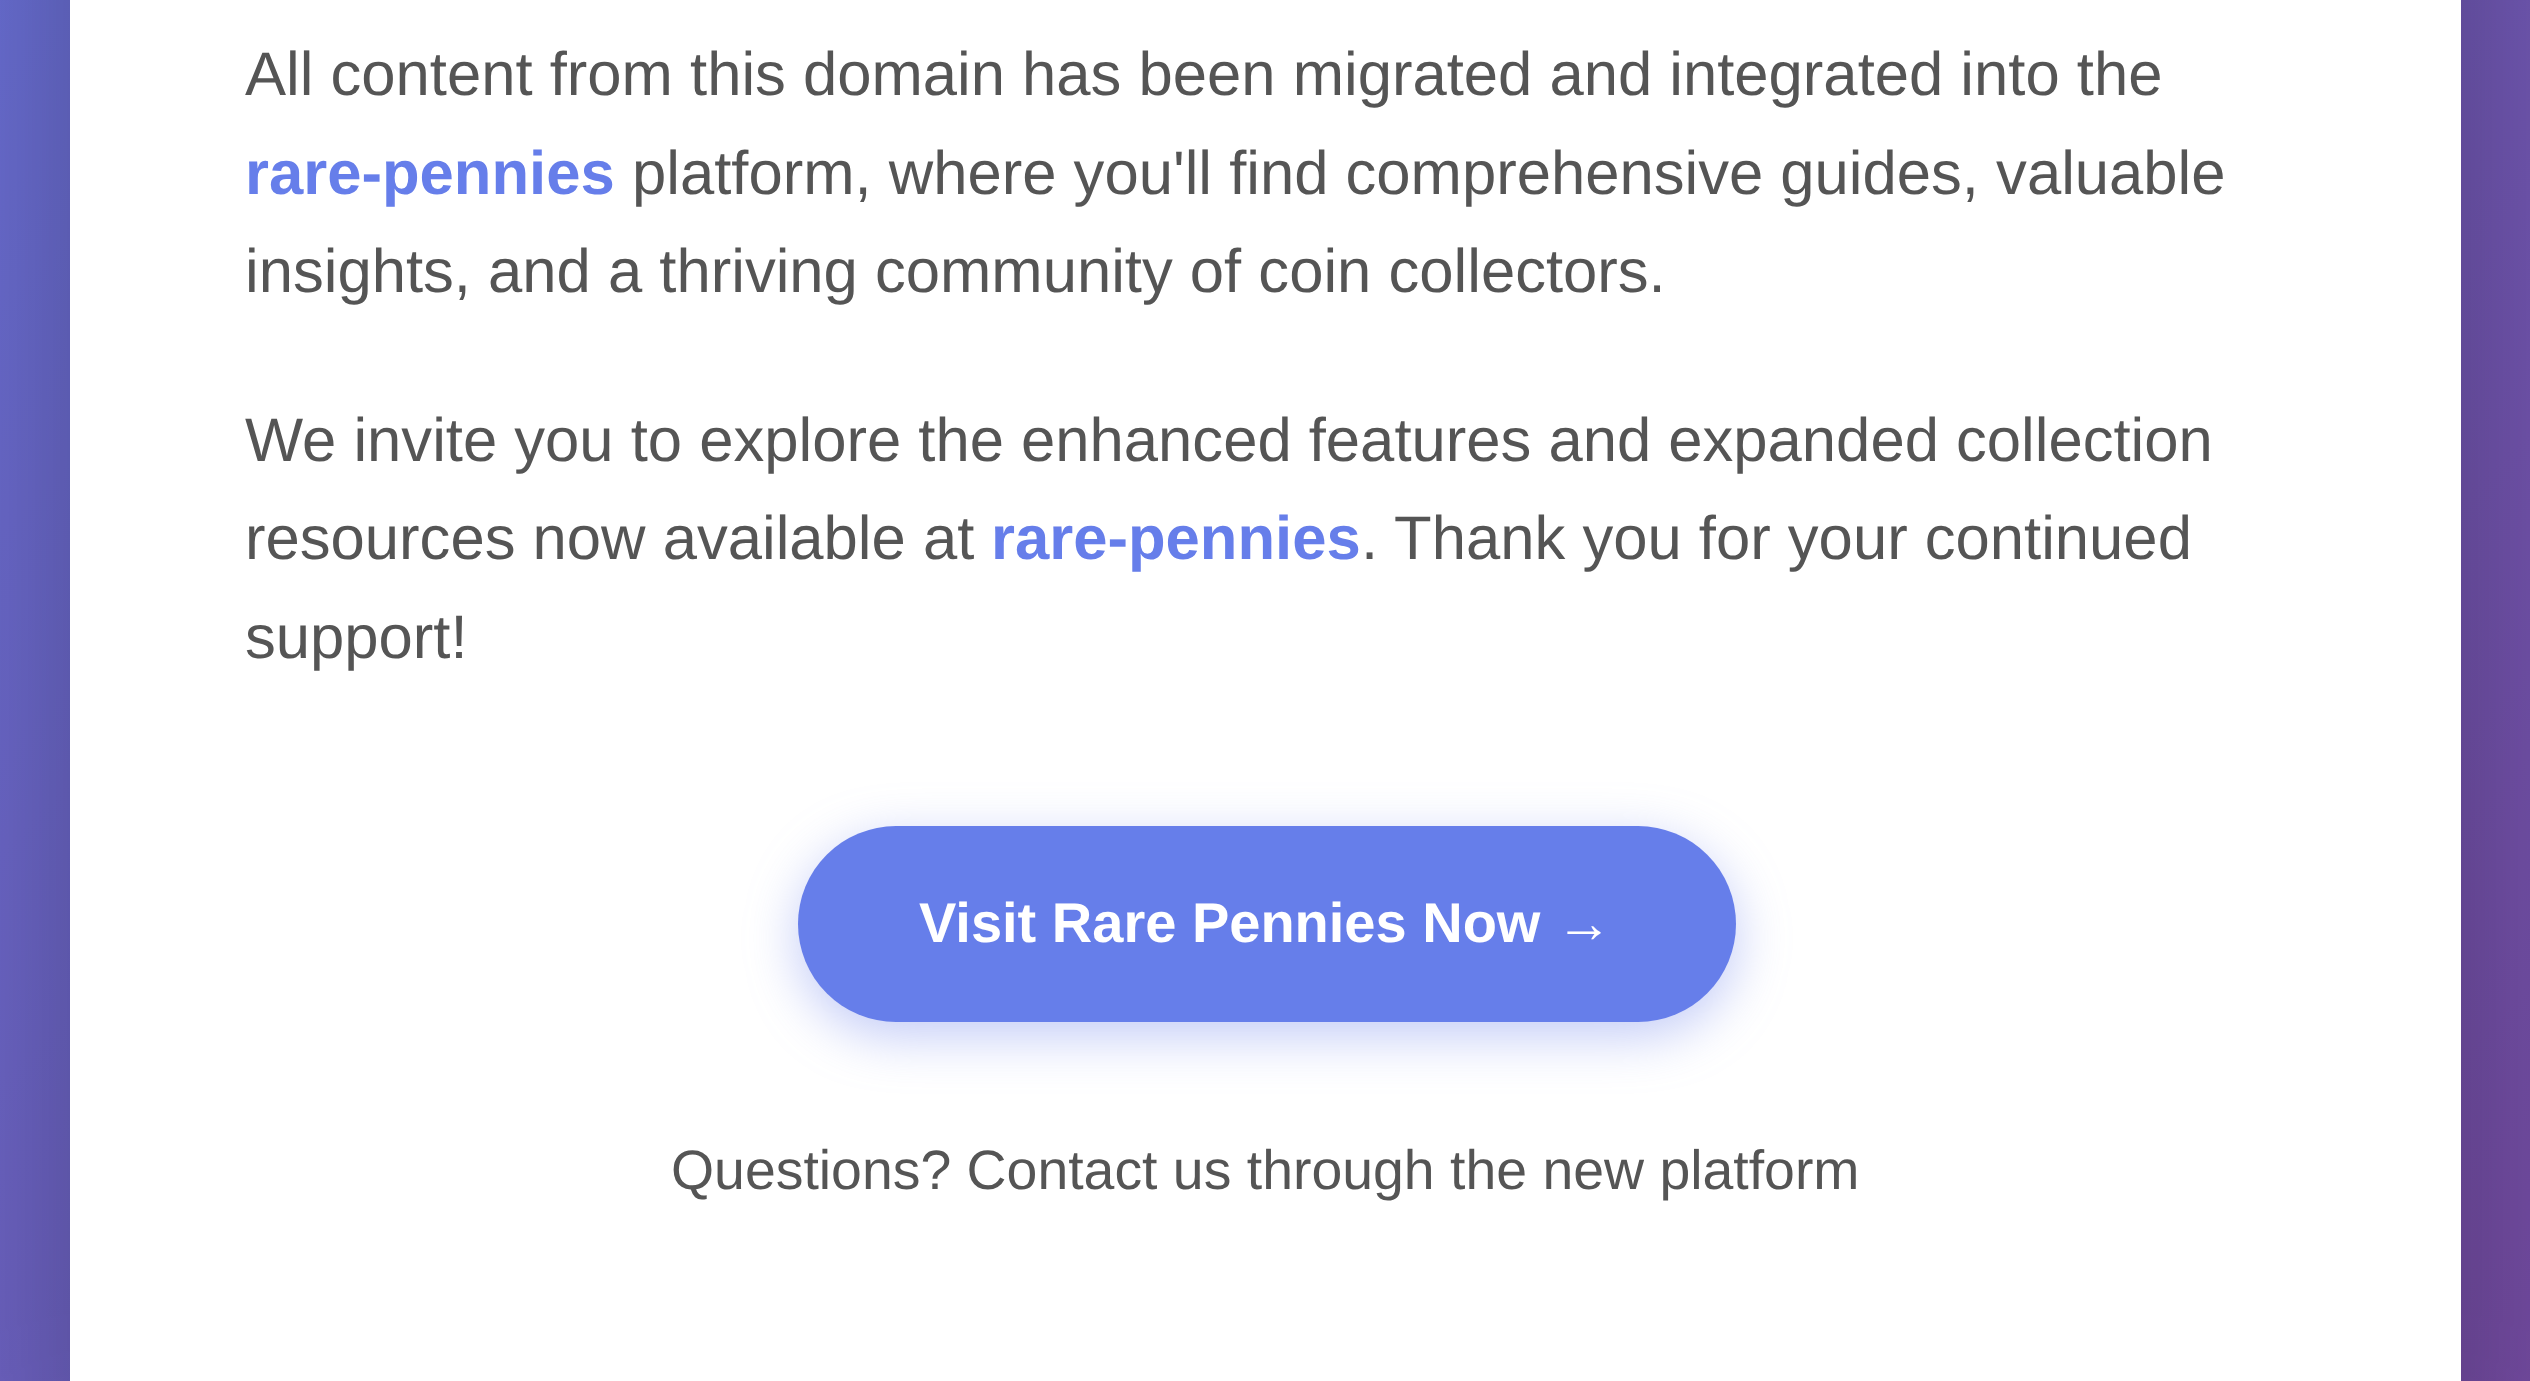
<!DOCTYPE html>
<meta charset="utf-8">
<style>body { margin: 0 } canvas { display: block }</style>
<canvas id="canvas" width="2530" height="1381"></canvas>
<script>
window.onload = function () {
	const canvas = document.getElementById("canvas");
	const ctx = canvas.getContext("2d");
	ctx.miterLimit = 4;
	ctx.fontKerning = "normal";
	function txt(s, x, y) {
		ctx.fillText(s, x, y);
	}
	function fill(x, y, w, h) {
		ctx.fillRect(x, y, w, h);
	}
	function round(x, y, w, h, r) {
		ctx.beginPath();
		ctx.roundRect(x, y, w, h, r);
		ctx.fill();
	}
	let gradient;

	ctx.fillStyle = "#FFFFFF";
	fill(0, 0, 2530, 1381);
	gradient = ctx.createLinearGradient(-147, -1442, 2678, 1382);
	gradient.addColorStop(0, "#667EEA");
	gradient.addColorStop(1, "#764BA2");
	ctx.fillStyle = gradient;
	fill(0, 0, 2530, 1381);
	ctx.fillStyle = "rgba(0, 0, 0, 0.3)";
	ctx.filter = "blur(105px)";
	ctx.beginPath();
	ctx.roundRect(70, -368, 2391, 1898, 53);
	ctx.fill();
	ctx.filter = "none";
	ctx.fillStyle = "#FFFFFF";
	fill(70, 0, 2391, 1381);
	ctx.fillStyle = "rgba(102, 126, 234, 0.4)";
	ctx.filter = "blur(26px)";
	ctx.beginPath();
	ctx.roundRect(798, 840, 938, 196, 98);
	ctx.fill();
	ctx.filter = "none";
	ctx.fillStyle = "#667EEA";
	round(798, 826, 938, 196, 98);
	ctx.font = "61.6px Liberation Sans";
	ctx.fillStyle = "#555555";
	txt("All content from this domain has been migrated and integrated into the", 245, 95);
	ctx.font = "bold 61.6px Liberation Sans";
	ctx.fillStyle = "#667EEA";
	txt("rare-pennies", 245, 194);
	ctx.font = "61.6px Liberation Sans";
	ctx.fillStyle = "#555555";
	txt("platform, where you'll find comprehensive guides, valuable", 632, 194);
	txt("insights, and a thriving community of coin collectors.", 245, 292);
	txt("We invite you to explore the enhanced features and expanded collection", 245, 461);
	txt("resources now available at", 245, 559);
	ctx.font = "bold 61.6px Liberation Sans";
	ctx.fillStyle = "#667EEA";
	txt("rare-pennies", 991, 559);
	ctx.font = "61.6px Liberation Sans";
	ctx.fillStyle = "#555555";
	txt(". Thank you for your continued", 1361, 559);
	txt("support!", 245, 658);
	ctx.font = "bold 56px Liberation Sans";
	ctx.fillStyle = "#FFFFFF";
	txt("Visit Rare Pennies Now →", 919, 942);
	ctx.font = "55.4px Liberation Sans";
	ctx.fillStyle = "#555555";
	txt("Questions? Contact us through the new platform", 671, 1189);
};
</script>
